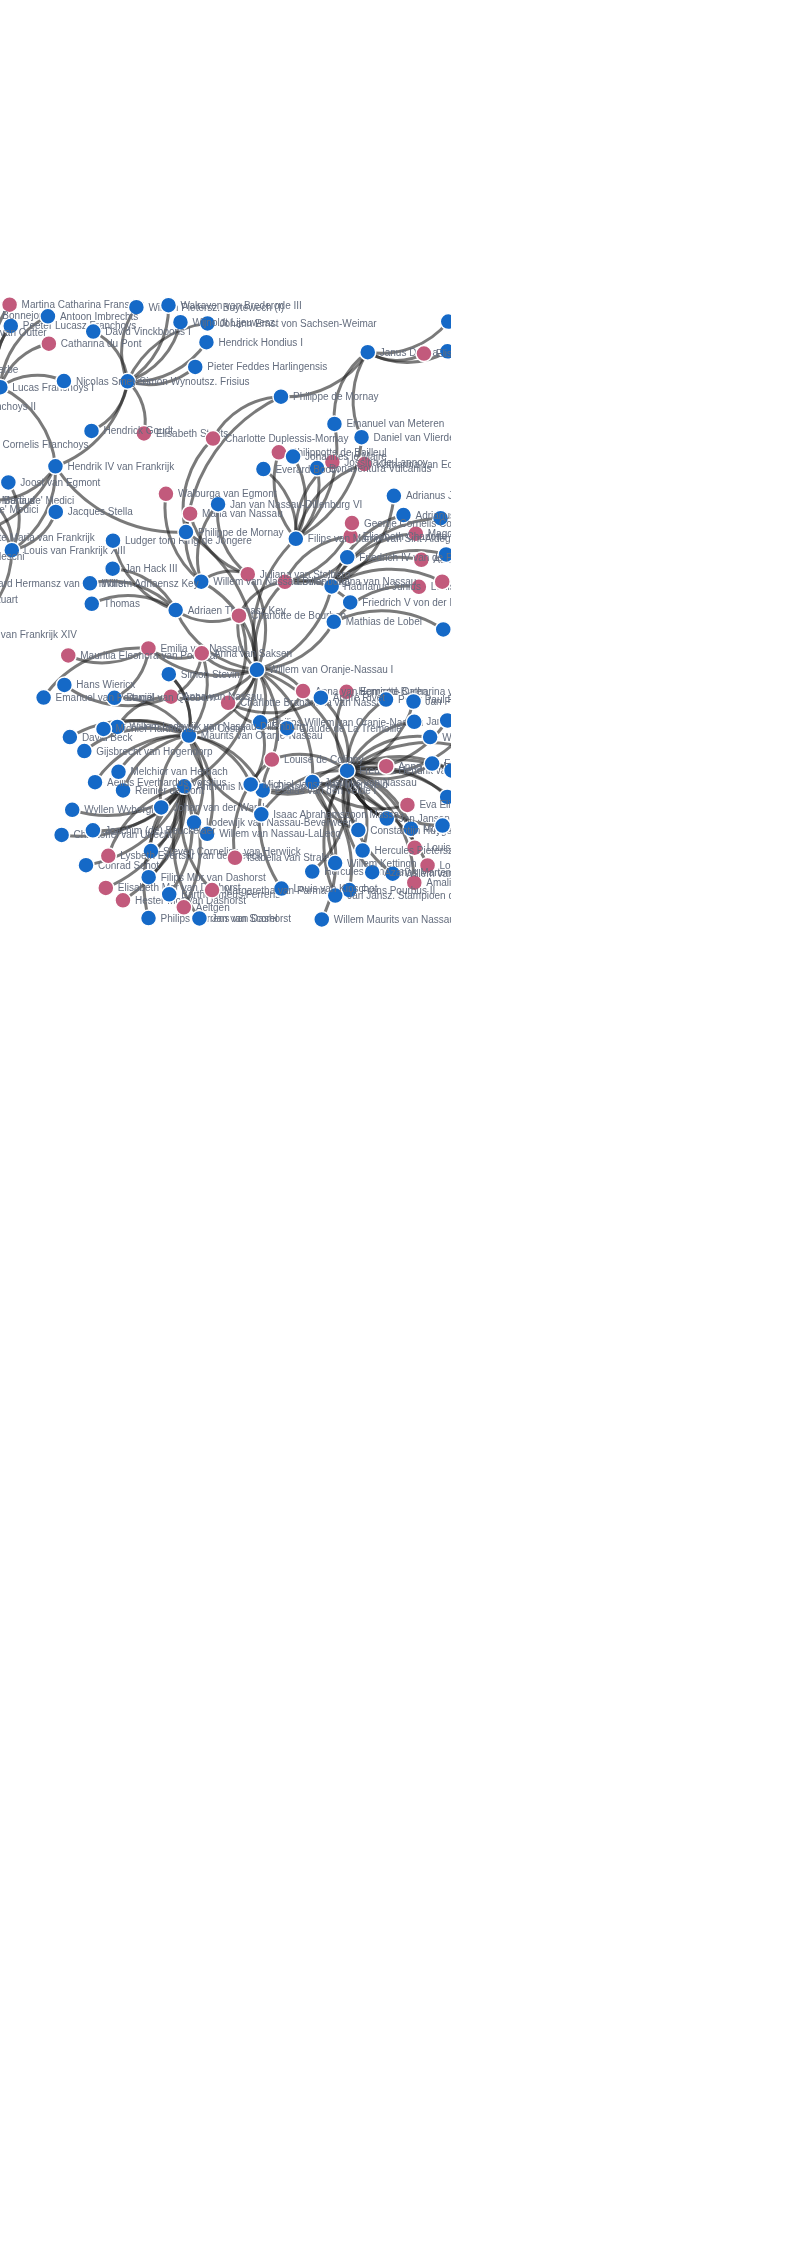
<!DOCTYPE html>
<meta charset="utf-8">
<style>body { margin: 0 } canvas { display: block }</style>
<canvas id="canvas" width="789" height="2255"></canvas>
<img id="img1" src="img_01.png" hidden>
<script>
window.onload = function () {
	const canvas = document.getElementById("canvas");
	const ctx = canvas.getContext("2d");
	ctx.miterLimit = 4;
	ctx.fontKerning = "normal";
	function fill(x, y, w, h) {
		ctx.fillRect(x, y, w, h);
	}
	function img(id, x, y, w, h) {
		ctx.drawImage(document.getElementById(id), x, y, w, h);
	}

	ctx.fillStyle = "#FFFFFF";
	fill(0, 0, 789, 2255);
	img("img1", 0, 297, 451, 630);
};
</script>
